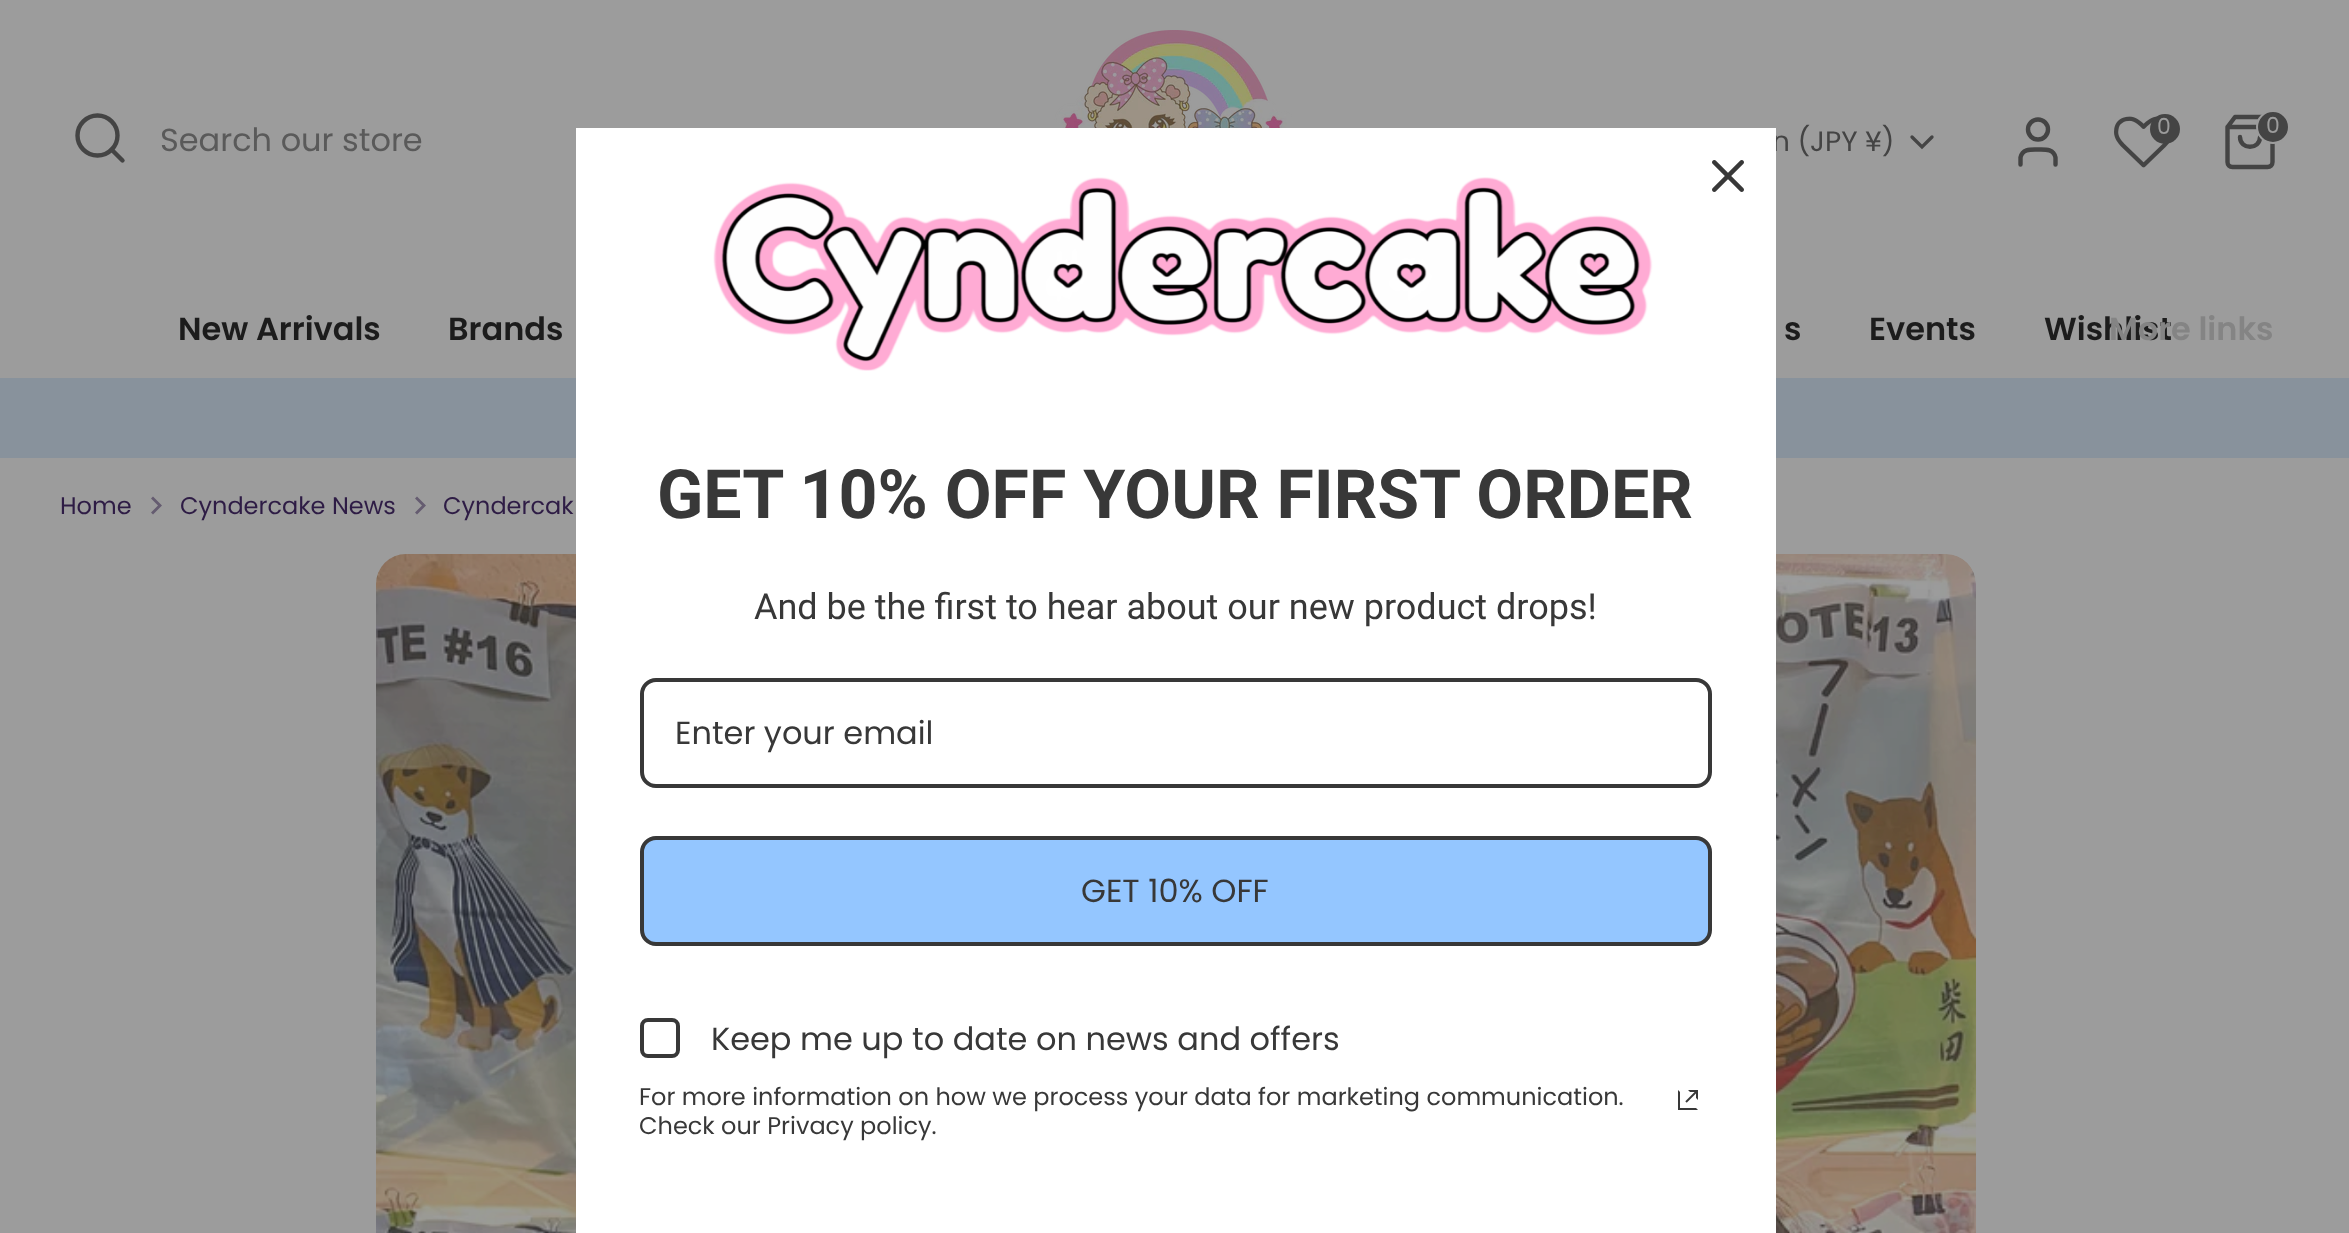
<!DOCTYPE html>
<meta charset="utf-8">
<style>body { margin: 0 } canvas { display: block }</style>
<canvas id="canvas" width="2349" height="1233"></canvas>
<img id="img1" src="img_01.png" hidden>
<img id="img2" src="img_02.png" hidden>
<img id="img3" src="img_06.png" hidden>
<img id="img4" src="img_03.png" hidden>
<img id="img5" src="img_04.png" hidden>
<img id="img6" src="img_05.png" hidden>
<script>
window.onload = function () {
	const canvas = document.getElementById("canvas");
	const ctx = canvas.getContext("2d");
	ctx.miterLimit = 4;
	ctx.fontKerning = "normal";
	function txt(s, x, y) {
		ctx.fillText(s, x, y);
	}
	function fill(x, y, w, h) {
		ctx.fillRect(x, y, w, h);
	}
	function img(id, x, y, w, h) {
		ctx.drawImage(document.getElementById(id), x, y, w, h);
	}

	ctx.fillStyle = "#9C9C9C";
	fill(0, 0, 2349, 1233);
	img("img1", 1054, 30, 240, 98);
	ctx.beginPath();
	ctx.arc(97.5, 135.5, 20, 0, Math.PI * 2);
	ctx.strokeStyle = "#444444";
	ctx.lineWidth = 4.4;
	ctx.stroke();
	ctx.beginPath();
	ctx.moveTo(122.5, 160.5);
	ctx.lineTo(111.5, 149.5);
	ctx.lineCap = "round";
	ctx.lineJoin = "round";
	ctx.stroke();
	ctx.beginPath();
	ctx.moveTo(1912, 137);
	ctx.lineTo(1922, 147);
	ctx.lineTo(1932, 137);
	ctx.lineWidth = 3.3;
	ctx.lineJoin = "miter";
	ctx.stroke();
	ctx.beginPath();
	ctx.moveTo(2055.5, 164.5);
	ctx.lineTo(2055.5, 157.5);
	ctx.bezierCurveTo(2053.5, 148.5, 2045, 149.5, 2038, 149.5);
	ctx.bezierCurveTo(2031, 149.5, 2022.5, 148.5, 2020.5, 157.5);
	ctx.lineTo(2020.5, 164.5);
	ctx.lineWidth = 4.4;
	ctx.lineJoin = "round";
	ctx.stroke();
	ctx.beginPath();
	ctx.arc(2038, 129.5, 10, 0, Math.PI * 2);
	ctx.stroke();
	img("img2", 2114, 116, 55, 52);
	ctx.fillStyle = "#444444";
	ctx.beginPath();
	ctx.arc(2165, 129, 15, 0, Math.PI * 2);
	ctx.fill();
	ctx.beginPath();
	ctx.moveTo(2235, 117);
	ctx.lineTo(2227.5, 127);
	ctx.lineTo(2227.5, 162);
	ctx.bezierCurveTo(2227.5, 165, 2229.5, 167, 2232.5, 167);
	ctx.lineTo(2267.5, 167);
	ctx.bezierCurveTo(2270.5, 167, 2272.5, 165, 2272.5, 162);
	ctx.lineTo(2272.5, 127);
	ctx.lineTo(2265, 117);
	ctx.closePath();
	ctx.moveTo(2227.5, 127);
	ctx.lineTo(2272.5, 127);
	ctx.moveTo(2260, 137);
	ctx.bezierCurveTo(2260, 150, 2240, 150, 2240, 137);
	ctx.stroke();
	ctx.beginPath();
	ctx.arc(2273, 127, 16, 0, Math.PI * 2);
	ctx.fill();
	ctx.strokeStyle = "#9C9C9C";
	ctx.lineWidth = 2;
	ctx.stroke();
	ctx.fillStyle = "#88929C";
	fill(0, 378, 2349, 80);
	ctx.fillStyle = "#655C70";
	ctx.beginPath();
	ctx.moveTo(151, 512.5);
	ctx.lineTo(158, 505.5);
	ctx.lineTo(151, 498.5);
	ctx.lineTo(153, 496.5);
	ctx.lineTo(162, 505.5);
	ctx.lineTo(153, 514.5);
	ctx.closePath();
	ctx.fill();
	ctx.beginPath();
	ctx.moveTo(415, 512.5);
	ctx.lineTo(422, 505.5);
	ctx.lineTo(415, 498.5);
	ctx.lineTo(417, 496.5);
	ctx.lineTo(426, 505.5);
	ctx.lineTo(417, 514.5);
	ctx.closePath();
	ctx.fill();
	img("img3", 376, 554, 1600, 679);
	ctx.font = "32px Poppins";
	ctx.fillStyle = "#5A5A5A";
	txt("Search our store", 160, 151);
	ctx.font = "28px Poppins";
	ctx.fillStyle = "#444444";
	txt("n (JPY ¥)", 1772, 151);
	ctx.font = "22px Poppins";
	ctx.fillStyle = "#9C9C9C";
	txt("0", 2157, 134);
	txt("0", 2266, 133);
	ctx.font = "600 32px Poppins";
	ctx.fillStyle = "#1C1C1C";
	txt("New Arrivals", 178, 340);
	txt("Brands", 448, 340);
	txt("s", 1784, 340);
	txt("Events", 1869, 340);
	txt("Wishlist", 2044, 340);
	ctx.fillStyle = "#848484";
	txt("More links", 2109, 340);
	ctx.font = "24px Poppins";
	ctx.fillStyle = "#2E1C45";
	txt("Home", 60, 514);
	txt("Cyndercake News", 180, 514);
	txt("Cyndercak", 443, 514);
	ctx.fillStyle = "#FFFFFF";
	fill(576, 128, 1200, 1105);
	img("img4", 1712, 160, 32, 32);
	img("img5", 713, 177, 940, 194);
	ctx.font = "bold 68px Roboto";
	ctx.fillStyle = "#383838";
	txt("GET 10% OFF YOUR FIRST ORDER", 657, 518);
	ctx.font = "36px Roboto";
	txt("And be the first to hear about our new product drops!", 754, 619);
	ctx.beginPath();
	ctx.roundRect(642, 680, 1068, 106, 14);
	ctx.strokeStyle = "#383838";
	ctx.lineWidth = 4;
	ctx.lineJoin = "miter";
	ctx.stroke();
	ctx.font = "32px 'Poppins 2'";
	txt("Enter your email", 675, 744);
	ctx.fillStyle = "#94C6FF";
	ctx.beginPath();
	ctx.roundRect(642, 838, 1068, 106, 14);
	ctx.fill();
	ctx.stroke();
	ctx.fillStyle = "#383838";
	txt("GET 10% OFF", 1081, 902);
	ctx.beginPath();
	ctx.roundRect(642, 1020, 36, 36, 6);
	ctx.stroke();
	txt("Keep me up to date on news and offers", 711, 1050);
	ctx.font = "24px 'Poppins 2'";
	txt("For more information on how we process your data for marketing communication.", 639, 1105);
	txt("Check our Privacy policy.", 639, 1134);
	img("img6", 1678, 1090, 20, 20);
};
</script>
